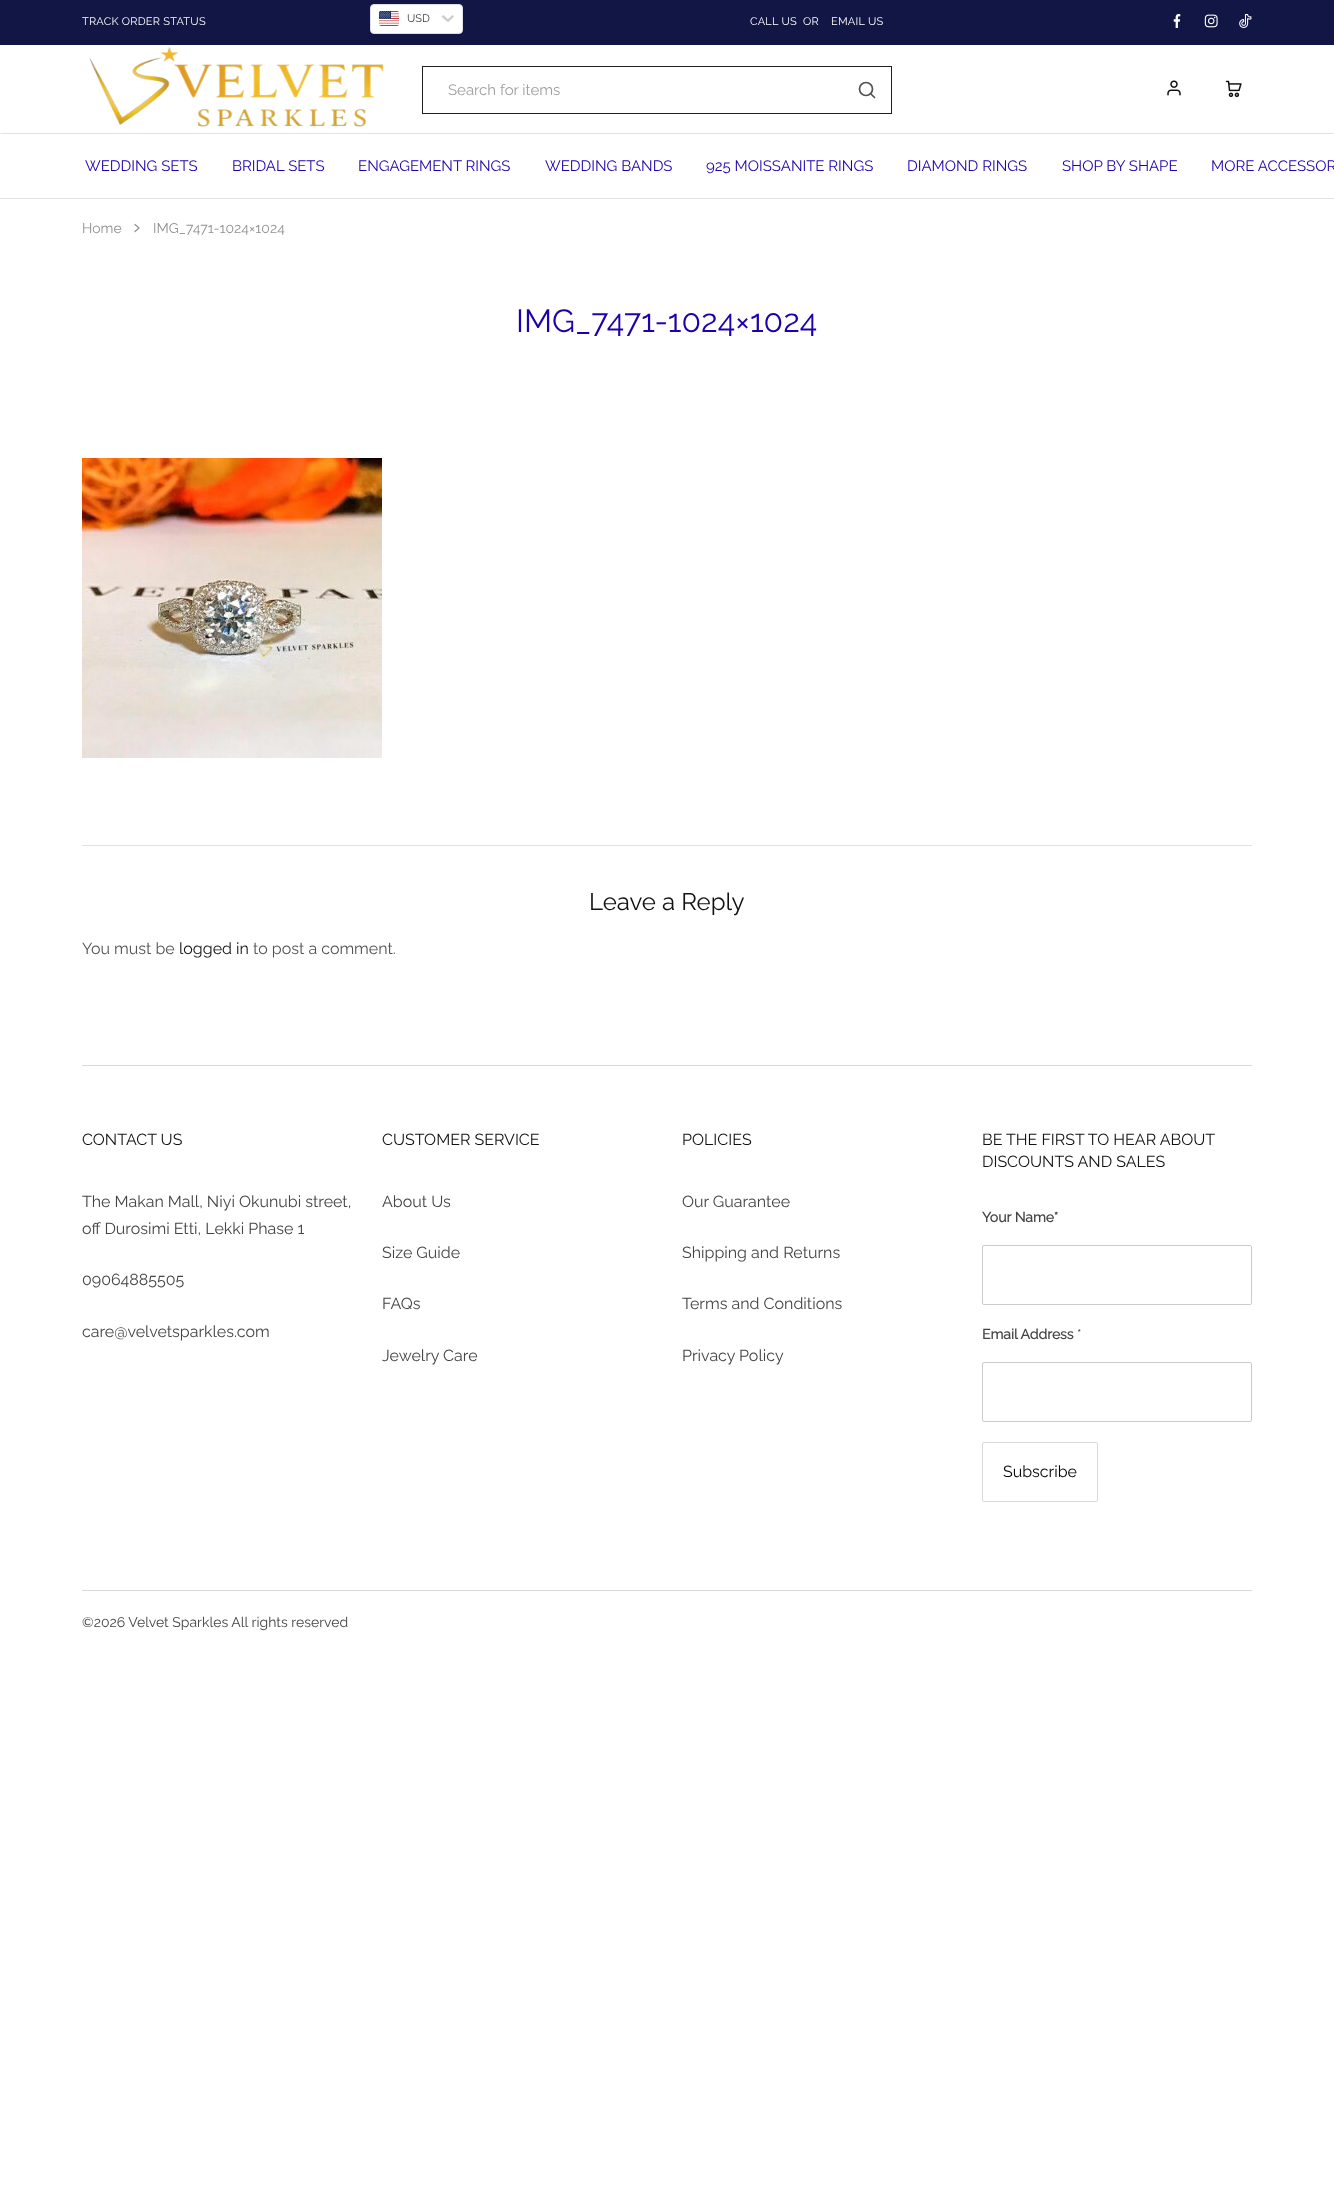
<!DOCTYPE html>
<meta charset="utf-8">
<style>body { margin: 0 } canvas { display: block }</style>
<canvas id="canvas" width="1334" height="2198"></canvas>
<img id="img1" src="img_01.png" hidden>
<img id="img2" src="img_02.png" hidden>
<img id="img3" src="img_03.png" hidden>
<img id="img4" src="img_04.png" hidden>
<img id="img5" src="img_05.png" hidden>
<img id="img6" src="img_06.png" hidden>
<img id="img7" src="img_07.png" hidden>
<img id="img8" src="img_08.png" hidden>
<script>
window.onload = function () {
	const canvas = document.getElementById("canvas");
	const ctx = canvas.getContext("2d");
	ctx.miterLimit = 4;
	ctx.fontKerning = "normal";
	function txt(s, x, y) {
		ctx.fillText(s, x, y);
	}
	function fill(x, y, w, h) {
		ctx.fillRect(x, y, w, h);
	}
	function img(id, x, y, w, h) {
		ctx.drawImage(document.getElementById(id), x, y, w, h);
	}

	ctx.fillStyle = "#FFFFFF";
	fill(0, 0, 1334, 2198);
	ctx.fillStyle = "#111645";
	fill(0, 0, 1334, 45);
	ctx.fillStyle = "#FFFFFF";
	ctx.beginPath();
	ctx.roundRect(370.5, 4.5, 92, 29, 3.5);
	ctx.fill();
	ctx.strokeStyle = "#DCDFE6";
	ctx.stroke();
	img("img1", 379, 11, 20, 15);
	ctx.fillStyle = "#CCCCCC";
	ctx.beginPath();
	ctx.moveTo(441.5, 16.5);
	ctx.lineTo(443.5, 15);
	ctx.lineTo(449, 20.5);
	ctx.lineTo(447.5, 22);
	ctx.closePath();
	ctx.fill();
	ctx.beginPath();
	ctx.moveTo(452.5, 15);
	ctx.lineTo(454, 16.5);
	ctx.lineTo(448.5, 22);
	ctx.lineTo(446.5, 20.5);
	ctx.closePath();
	ctx.fill();
	img("img2", 1173, 14, 8, 14);
	img("img3", 1204, 14, 14, 14);
	img("img4", 1239, 14, 13, 14);
	ctx.fillStyle = "#E2E2E2";
	fill(0, 198, 1334, 1);
	ctx.beginPath();
	ctx.moveTo(1334, 134);
	ctx.lineTo(0, 134);
	ctx.lineTo(1, 133);
	ctx.lineTo(1333, 133);
	ctx.closePath();
	ctx.fill();
	img("img5", 89, 47, 295, 80);
	ctx.strokeStyle = "#1F1F1F";
	ctx.strokeRect(422.5, 66.5, 469, 47);
	ctx.beginPath();
	ctx.arc(866, 89, 6.5, 0, Math.PI * 2);
	ctx.strokeStyle = "#525252";
	ctx.lineWidth = 1.7;
	ctx.stroke();
	ctx.beginPath();
	ctx.moveTo(874.5, 97.5);
	ctx.lineTo(871, 94);
	ctx.lineCap = "round";
	ctx.lineJoin = "round";
	ctx.stroke();
	img("img6", 1167, 80, 14, 16);
	img("img7", 1225, 80, 17, 18);
	ctx.beginPath();
	ctx.moveTo(135, 231.5);
	ctx.lineTo(139, 228);
	ctx.lineTo(135, 224.5);
	ctx.strokeStyle = "#909090";
	ctx.lineWidth = 1.2;
	ctx.stroke();
	img("img8", 82, 458, 300, 300);
	fill(82, 845, 1170, 1);
	ctx.fillStyle = "#D9D9D9";
	fill(82, 1065, 1170, 1);
	ctx.beginPath();
	ctx.roundRect(982.5, 1245.5, 269, 59, 1.5);
	ctx.strokeStyle = "#CCCCCC";
	ctx.lineWidth = 1;
	ctx.lineJoin = "miter";
	ctx.stroke();
	ctx.beginPath();
	ctx.roundRect(982.5, 1362.5, 269, 59, 1.5);
	ctx.stroke();
	ctx.beginPath();
	ctx.roundRect(982.5, 1442.5, 115, 59, 1.5);
	ctx.strokeStyle = "#D9D9D9";
	ctx.stroke();
	fill(82, 1590, 1170, 1);
	ctx.letterSpacing = "0.25px";
	ctx.font = "100 11px Raleway";
	ctx.fillStyle = "#FFFFFF";
	txt("TRACK ORDER STATUS", 82, 25);
	ctx.letterSpacing = "0px";
	ctx.fillStyle = "#3B3B3B";
	txt("USD", 407, 22);
	ctx.letterSpacing = "0.25px";
	ctx.fillStyle = "#FFFFFF";
	txt("CALL US", 750, 25);
	txt("OR", 803, 25);
	txt("EMAIL US", 831, 25);
	ctx.letterSpacing = "0px";
	ctx.font = "100 15px Raleway";
	ctx.fillStyle = "#A0A0A0";
	txt("Search for items", 448, 95);
	ctx.fillStyle = "#1D01AA";
	txt("WEDDING SETS", 85, 171);
	txt("BRIDAL SETS", 232, 171);
	txt("ENGAGEMENT RINGS", 358, 171);
	txt("WEDDING BANDS", 545, 171);
	txt("925 MOISSANITE RINGS", 706, 171);
	txt("DIAMOND RINGS", 907, 171);
	txt("SHOP BY SHAPE", 1062, 171);
	txt("MORE ACCESSOR", 1211, 171);
	ctx.font = "100 14px Raleway";
	ctx.fillStyle = "#909090";
	txt("Home", 82, 233);
	txt("IMG_7471-1024×1024", 153, 233);
	ctx.font = "100 32px Raleway";
	ctx.fillStyle = "#1D01AA";
	txt("IMG_7471-1024×1024", 516, 332);
	ctx.font = "100 24px Raleway";
	ctx.fillStyle = "#111111";
	txt("Leave a Reply", 589, 910);
	ctx.font = "100 16px Raleway";
	ctx.fillStyle = "#525252";
	txt("You must be", 82, 954);
	ctx.fillStyle = "#111111";
	txt("logged in", 179, 954);
	ctx.fillStyle = "#525252";
	txt("to post a comment.", 253, 954);
	ctx.fillStyle = "#111111";
	txt("CONTACT US", 82, 1145);
	ctx.fillStyle = "#444444";
	txt("The Makan Mall, Niyi Okunubi street,", 82, 1207);
	txt("off Durosimi Etti, Lekki Phase 1", 82, 1234);
	txt("09064885505", 82, 1285);
	txt("care@velvetsparkles.com", 82, 1337);
	ctx.fillStyle = "#111111";
	txt("CUSTOMER SERVICE", 382, 1145);
	ctx.fillStyle = "#444444";
	txt("About Us", 382, 1207);
	txt("Size Guide", 382, 1258);
	txt("FAQs", 382, 1309);
	txt("Jewelry Care", 382, 1361);
	ctx.fillStyle = "#111111";
	txt("POLICIES", 682, 1145);
	ctx.fillStyle = "#444444";
	txt("Our Guarantee", 682, 1207);
	txt("Shipping and Returns", 682, 1258);
	txt("Terms and Conditions", 682, 1309);
	txt("Privacy Policy", 682, 1361);
	ctx.fillStyle = "#111111";
	txt("BE THE FIRST TO HEAR ABOUT", 982, 1145);
	txt("DISCOUNTS AND SALES", 982, 1167);
	ctx.font = "bold 14px Raleway";
	ctx.fillStyle = "#444444";
	txt("Your Name*", 982, 1222);
	txt("Email Address", 982, 1339);
	ctx.font = "100 14px Raleway";
	txt("*", 1077, 1339);
	ctx.font = "100 16px Raleway";
	ctx.fillStyle = "#000000";
	txt("Subscribe", 1003, 1477);
	ctx.font = "100 14px Raleway";
	ctx.fillStyle = "#444444";
	txt("©2026 Velvet Sparkles All rights reserved", 82, 1627);
};
</script>
